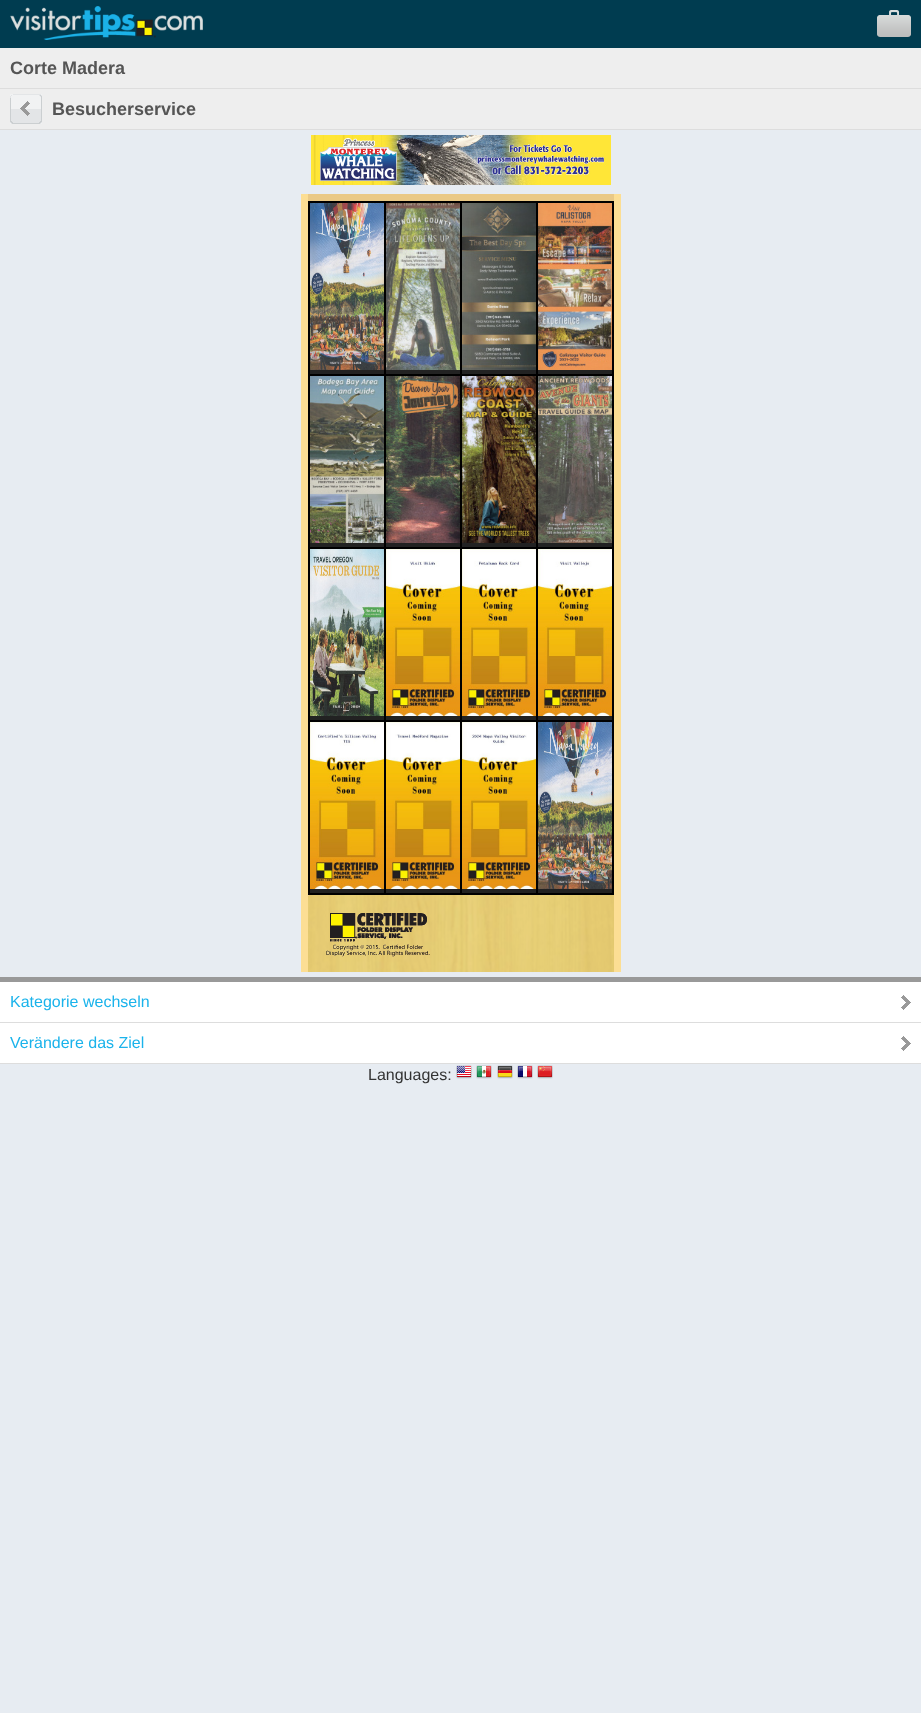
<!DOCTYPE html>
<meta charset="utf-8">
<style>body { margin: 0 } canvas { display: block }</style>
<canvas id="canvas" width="921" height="1713"></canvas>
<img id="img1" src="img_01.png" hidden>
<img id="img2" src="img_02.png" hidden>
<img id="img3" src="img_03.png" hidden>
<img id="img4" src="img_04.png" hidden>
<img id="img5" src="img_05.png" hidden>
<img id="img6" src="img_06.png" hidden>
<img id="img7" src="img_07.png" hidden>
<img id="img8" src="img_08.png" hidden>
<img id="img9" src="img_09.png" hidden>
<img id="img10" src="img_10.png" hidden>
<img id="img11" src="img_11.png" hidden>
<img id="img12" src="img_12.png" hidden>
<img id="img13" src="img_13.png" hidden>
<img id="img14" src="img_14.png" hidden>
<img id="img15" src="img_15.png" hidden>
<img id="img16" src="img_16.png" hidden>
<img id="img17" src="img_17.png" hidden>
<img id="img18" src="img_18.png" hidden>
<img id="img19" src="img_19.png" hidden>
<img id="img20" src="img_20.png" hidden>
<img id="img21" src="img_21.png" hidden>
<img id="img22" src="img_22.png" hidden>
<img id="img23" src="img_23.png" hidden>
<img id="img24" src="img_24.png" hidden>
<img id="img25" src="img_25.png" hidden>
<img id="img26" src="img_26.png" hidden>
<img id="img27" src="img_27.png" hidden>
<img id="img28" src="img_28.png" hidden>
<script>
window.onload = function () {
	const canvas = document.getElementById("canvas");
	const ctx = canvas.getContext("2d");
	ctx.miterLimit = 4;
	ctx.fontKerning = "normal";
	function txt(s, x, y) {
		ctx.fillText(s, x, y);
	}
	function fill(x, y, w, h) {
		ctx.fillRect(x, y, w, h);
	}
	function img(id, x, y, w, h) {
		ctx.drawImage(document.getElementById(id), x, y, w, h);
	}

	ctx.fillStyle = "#E7ECF2";
	fill(0, 0, 921, 1713);
	ctx.fillStyle = "#003C50";
	fill(0, 0, 921, 48);
	img("img1", 10, 6, 193, 34);
	img("img2", 877, 10, 34, 27);
	ctx.fillStyle = "#EEEEEE";
	fill(0, 48, 921, 40);
	ctx.fillStyle = "#DDDDDD";
	fill(0, 88, 921, 1);
	ctx.fillStyle = "#EEEEEE";
	fill(0, 89, 921, 40);
	ctx.fillStyle = "#DDDDDD";
	fill(0, 129, 921, 1);
	img("img3", 10, 94, 32, 30);
	img("img4", 311, 135, 300, 50);
	ctx.fillStyle = "#FCDE94";
	fill(301, 194, 7, 778);
	ctx.fillStyle = "#EAC986";
	fill(308, 194, 306, 7);
	ctx.fillStyle = "#FCDE94";
	fill(614, 194, 7, 778);
	ctx.fillStyle = "#000000";
	fill(308, 201, 306, 694);
	ctx.fillStyle = "#222222";
	fill(310, 370, 74, 4);
	img("img5", 310, 203, 74, 167);
	fill(386, 370, 74, 4);
	img("img6", 386, 203, 74, 167);
	fill(462, 370, 74, 4);
	img("img7", 462, 203, 74, 167);
	fill(538, 370, 74, 4);
	img("img8", 538, 203, 74, 167);
	fill(310, 543, 74, 4);
	img("img9", 310, 376, 74, 167);
	fill(386, 543, 74, 4);
	img("img10", 386, 376, 74, 167);
	fill(462, 543, 74, 4);
	img("img11", 462, 376, 74, 167);
	fill(538, 543, 74, 4);
	img("img12", 538, 376, 74, 167);
	fill(310, 716, 74, 4);
	img("img13", 310, 549, 74, 167);
	fill(386, 716, 74, 4);
	img("img14", 386, 549, 74, 167);
	fill(462, 716, 74, 4);
	img("img15", 462, 549, 74, 167);
	fill(538, 716, 74, 4);
	img("img16", 538, 549, 74, 167);
	fill(310, 889, 74, 4);
	img("img17", 310, 722, 74, 167);
	fill(386, 889, 74, 4);
	img("img18", 386, 722, 74, 167);
	fill(462, 889, 74, 4);
	img("img19", 462, 722, 74, 167);
	fill(538, 889, 74, 4);
	img("img20", 538, 722, 74, 167);
	img("img21", 308, 895, 306, 77);
	img("img22", 326, 913, 104, 44);
	ctx.fillStyle = "#999999";
	fill(0, 977, 921, 5);
	ctx.fillStyle = "#FFFFFF";
	fill(0, 982, 921, 40);
	ctx.fillStyle = "#DDDDDD";
	fill(0, 1022, 921, 1);
	img("img23", 901, 995, 10, 15);
	ctx.fillStyle = "#FFFFFF";
	fill(0, 1023, 921, 40);
	ctx.fillStyle = "#DDDDDD";
	fill(0, 1063, 921, 1);
	img("img23", 901, 1036, 10, 15);
	img("img24", 456, 1065, 16, 14);
	img("img25", 476, 1065, 16, 14);
	img("img26", 497, 1065, 16, 14);
	img("img27", 517, 1065, 16, 14);
	img("img28", 537, 1065, 16, 14);
	ctx.font = "bold 18px Liberation Sans";
	ctx.fillStyle = "#555555";
	txt("Corte Madera", 10, 74);
	txt("Besucherservice", 52, 115);
	ctx.font = "16px Liberation Sans";
	ctx.fillStyle = "#1AB3EB";
	txt("Kategorie wechseln", 10, 1007);
	txt("Verändere das Ziel", 10, 1048);
	ctx.fillStyle = "#333333";
	txt("Languages:", 368, 1080);
};
</script>
